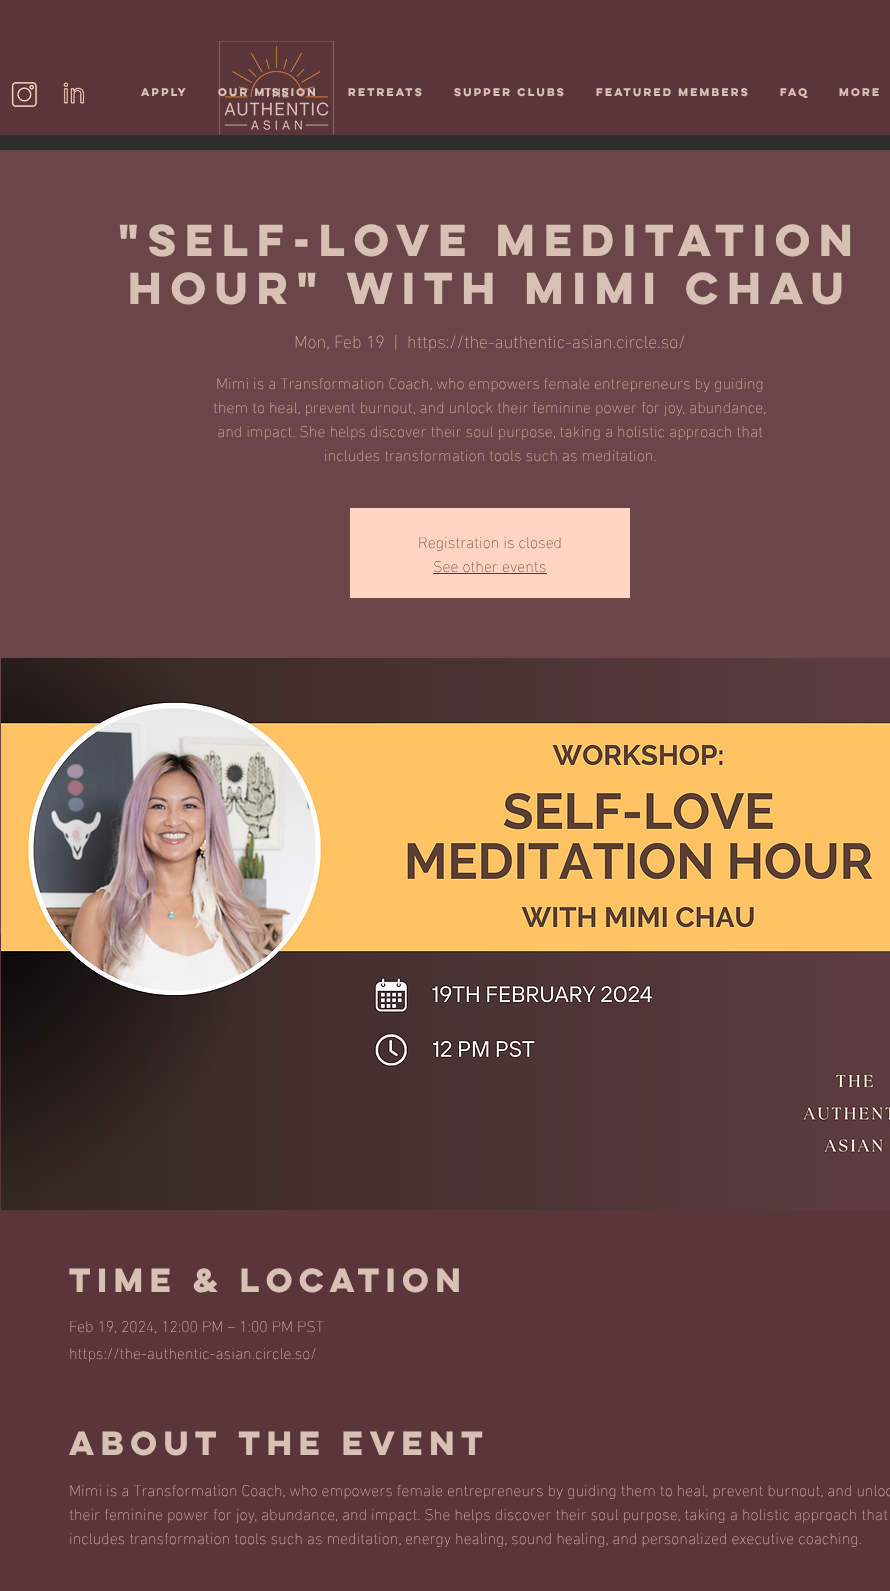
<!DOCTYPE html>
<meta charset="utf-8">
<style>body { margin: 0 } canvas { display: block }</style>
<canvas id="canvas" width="890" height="1591"></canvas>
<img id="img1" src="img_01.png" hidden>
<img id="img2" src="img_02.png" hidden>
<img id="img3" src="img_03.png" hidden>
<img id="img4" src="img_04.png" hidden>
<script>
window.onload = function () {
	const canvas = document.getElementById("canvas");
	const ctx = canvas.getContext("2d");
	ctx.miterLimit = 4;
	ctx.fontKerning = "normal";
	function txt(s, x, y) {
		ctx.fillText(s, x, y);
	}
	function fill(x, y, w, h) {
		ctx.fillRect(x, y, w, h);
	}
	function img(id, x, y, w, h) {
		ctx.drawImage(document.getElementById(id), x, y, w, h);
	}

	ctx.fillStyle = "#2D2E2D";
	fill(0, 0, 890, 1591);
	ctx.fillStyle = "#5A363B";
	fill(0, 0, 890, 135);
	img("img1", 219, 41, 115, 94);
	img("img2", 11, 82, 26, 25);
	img("img3", 63, 81, 22, 24);
	ctx.fillStyle = "#6A4649";
	fill(0, 150, 890, 784);
	ctx.fillStyle = "#FFD5C2";
	fill(350, 508, 280, 90);
	ctx.fillStyle = "#5A363B";
	fill(433, 573, 114, 1);
	fill(0, 934, 890, 657);
	img("img4", 1, 658, 889, 552);
	ctx.font = "bold 10px 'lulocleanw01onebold'";
	ctx.fillStyle = "#D9C0B4";
	txt("Apply", 141, 96);
	txt("Our Mission", 218, 96);
	txt("Retreats", 348, 96);
	txt("Supper Clubs", 454, 96);
	txt("Featured Members", 596, 96);
	txt("FAQ", 780, 96);
	txt("More", 839, 96);
	ctx.font = "bold 40px 'lulocleanw01onebold'";
	txt("\"Self-Love Meditation", 118, 256);
	txt("Hour\" with Mimi Chau", 128, 304);
	ctx.font = "200 18px 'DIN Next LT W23'";
	txt("Mon, Feb 19", 294, 348);
	txt("|", 394, 348);
	txt("https://the-authentic-asian.circle.so/", 407, 348);
	ctx.font = "200 16px 'DIN Next LT W23'";
	txt("Mimi is a Transformation Coach, who empowers female entrepreneurs by guiding", 216, 389);
	txt("them to heal, prevent burnout, and unlock their feminine power for joy, abundance,", 213, 413);
	txt("and impact. She helps discover their soul purpose, taking a holistic approach that", 217, 437);
	txt("includes transformation tools such as meditation.", 324, 461);
	ctx.fillStyle = "#5A363B";
	txt("Registration is closed", 418, 548);
	txt("See other events", 433, 572);
	ctx.font = "bold 30px 'lulocleanw01onebold'";
	ctx.fillStyle = "#D9C0B4";
	txt("Time & Location", 69, 1292);
	ctx.font = "200 16px 'DIN Next LT W23'";
	txt("Feb 19, 2024, 12:00 PM – 1:00 PM PST", 69, 1332);
	txt("https://the-authentic-asian.circle.so/", 69, 1359);
	ctx.font = "bold 30px 'lulocleanw01onebold'";
	txt("About the event", 69, 1455);
	ctx.font = "200 16px 'DIN Next LT W23'";
	txt("Mimi is a Transformation Coach, who empowers female entrepreneurs by guiding them to heal, prevent burnout, and unloc", 69, 1496);
	txt("their feminine power for joy, abundance, and impact. She helps discover their soul purpose, taking a holistic approach that", 69, 1520);
	txt("includes transformation tools such as meditation, energy healing, sound healing, and personalized executive coaching.", 69, 1544);
};
</script>
